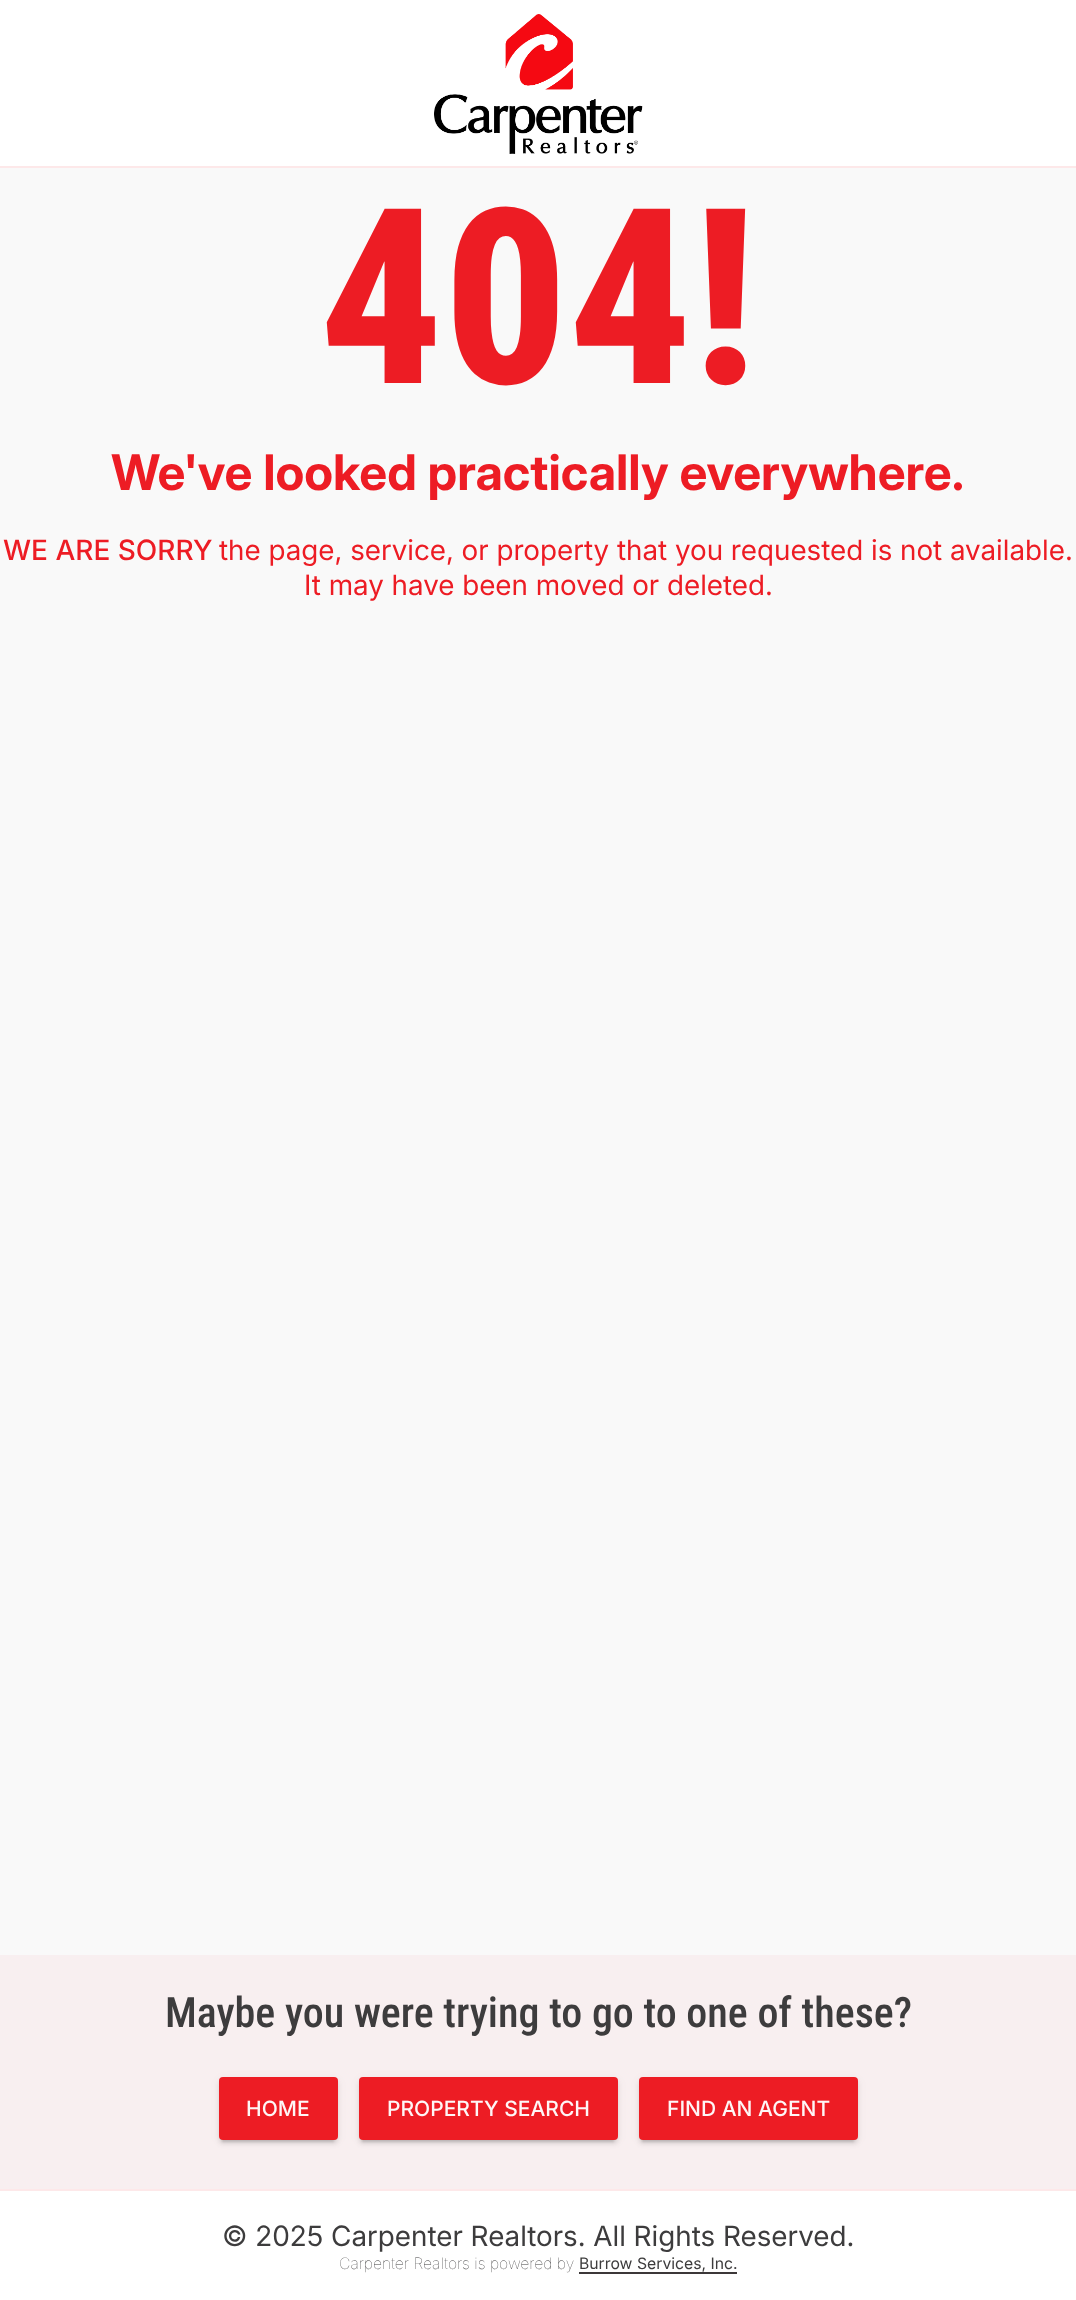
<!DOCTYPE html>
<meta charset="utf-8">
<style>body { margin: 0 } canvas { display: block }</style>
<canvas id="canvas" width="1076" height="2300"></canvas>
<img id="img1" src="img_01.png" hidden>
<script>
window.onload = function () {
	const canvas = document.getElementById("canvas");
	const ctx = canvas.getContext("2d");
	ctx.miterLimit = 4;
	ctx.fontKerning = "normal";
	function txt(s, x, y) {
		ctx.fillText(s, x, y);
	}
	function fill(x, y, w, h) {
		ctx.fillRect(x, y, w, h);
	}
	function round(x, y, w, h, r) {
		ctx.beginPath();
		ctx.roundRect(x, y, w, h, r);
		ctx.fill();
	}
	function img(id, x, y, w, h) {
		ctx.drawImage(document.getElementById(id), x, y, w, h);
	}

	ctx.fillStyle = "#F9F9F9";
	fill(0, 0, 1076, 2300);
	ctx.fillStyle = "#FFFFFF";
	fill(0, 0, 1076, 166);
	img("img1", 434, 14, 209, 140);
	ctx.fillStyle = "#FDE8E9";
	fill(0, 166, 1076, 2);
	ctx.fillStyle = "#F8EFF0";
	fill(0, 1955, 1076, 234);
	ctx.fillStyle = "rgba(0, 0, 0, 0.06)";
	ctx.filter = "blur(4.5px)";
	ctx.beginPath();
	ctx.roundRect(219, 2079, 119, 63, 4);
	ctx.fill();
	ctx.filter = "none";
	ctx.fillStyle = "rgba(0, 0, 0, 0.14)";
	ctx.filter = "blur(1px)";
	ctx.beginPath();
	ctx.rect(222, 2086, 112, 56);
	ctx.fill();
	ctx.filter = "none";
	ctx.fillStyle = "rgba(0, 0, 0, 0.08)";
	ctx.filter = "blur(2px)";
	ctx.beginPath();
	ctx.roundRect(219, 2081, 119, 63, 4);
	ctx.fill();
	ctx.filter = "none";
	ctx.fillStyle = "#ED1C24";
	round(219, 2077, 119, 63, 4);
	ctx.fillStyle = "rgba(0, 0, 0, 0.06)";
	ctx.filter = "blur(4.5px)";
	ctx.beginPath();
	ctx.roundRect(359, 2079, 259, 63, 4);
	ctx.fill();
	ctx.filter = "none";
	ctx.fillStyle = "rgba(0, 0, 0, 0.14)";
	ctx.filter = "blur(1px)";
	ctx.beginPath();
	ctx.rect(362, 2086, 252, 56);
	ctx.fill();
	ctx.filter = "none";
	ctx.fillStyle = "rgba(0, 0, 0, 0.08)";
	ctx.filter = "blur(2px)";
	ctx.beginPath();
	ctx.roundRect(359, 2081, 259, 63, 4);
	ctx.fill();
	ctx.filter = "none";
	ctx.fillStyle = "#ED1C24";
	round(359, 2077, 259, 63, 4);
	ctx.fillStyle = "rgba(0, 0, 0, 0.06)";
	ctx.filter = "blur(4.5px)";
	ctx.beginPath();
	ctx.roundRect(639, 2079, 219, 63, 4);
	ctx.fill();
	ctx.filter = "none";
	ctx.fillStyle = "rgba(0, 0, 0, 0.14)";
	ctx.filter = "blur(1px)";
	ctx.beginPath();
	ctx.rect(642, 2086, 212, 56);
	ctx.fill();
	ctx.filter = "none";
	ctx.fillStyle = "rgba(0, 0, 0, 0.08)";
	ctx.filter = "blur(2px)";
	ctx.beginPath();
	ctx.roundRect(639, 2081, 219, 63, 4);
	ctx.fill();
	ctx.filter = "none";
	ctx.fillStyle = "#ED1C24";
	round(639, 2077, 219, 63, 4);
	ctx.fillStyle = "#FFFFFF";
	fill(0, 2191, 1076, 109);
	ctx.fillStyle = "#FDE8E9";
	fill(0, 2189, 1076, 2);
	ctx.fillStyle = "#3C3839";
	fill(579, 2272, 158, 2);
	ctx.font = "800 245px Roboto Condensed";
	ctx.fillStyle = "#ED1C24";
	txt("404!", 319, 383);
	ctx.font = "bold 49px Inter";
	txt("We've looked practically everywhere.", 111, 490);
	ctx.font = "500 28px Inter";
	txt("WE ARE SORRY", 3, 560);
	ctx.font = "28px Inter";
	txt("the page, service, or property that you requested is not available.", 219, 560);
	txt("It may have been moved or deleted.", 304, 595);
	ctx.font = "500 42px Roboto Condensed";
	ctx.fillStyle = "#3D3C3D";
	txt("Maybe you were trying to go to one of these?", 165, 2027);
	ctx.font = "500 21px Inter";
	ctx.fillStyle = "#FEF6F6";
	txt("HOME", 246, 2116);
	txt("PROPERTY SEARCH", 387, 2116);
	txt("FIND AN AGENT", 667, 2116);
	ctx.font = "28px Inter";
	ctx.fillStyle = "#3D3C3D";
	txt("© 2025 Carpenter Realtors. All Rights Reserved.", 222, 2246);
	ctx.font = "100 15.75px Inter";
	txt("Carpenter Realtors is powered by", 339, 2269);
	ctx.font = "15.75px 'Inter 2'";
	txt("Burrow Services, Inc.", 579, 2269);
};
</script>
